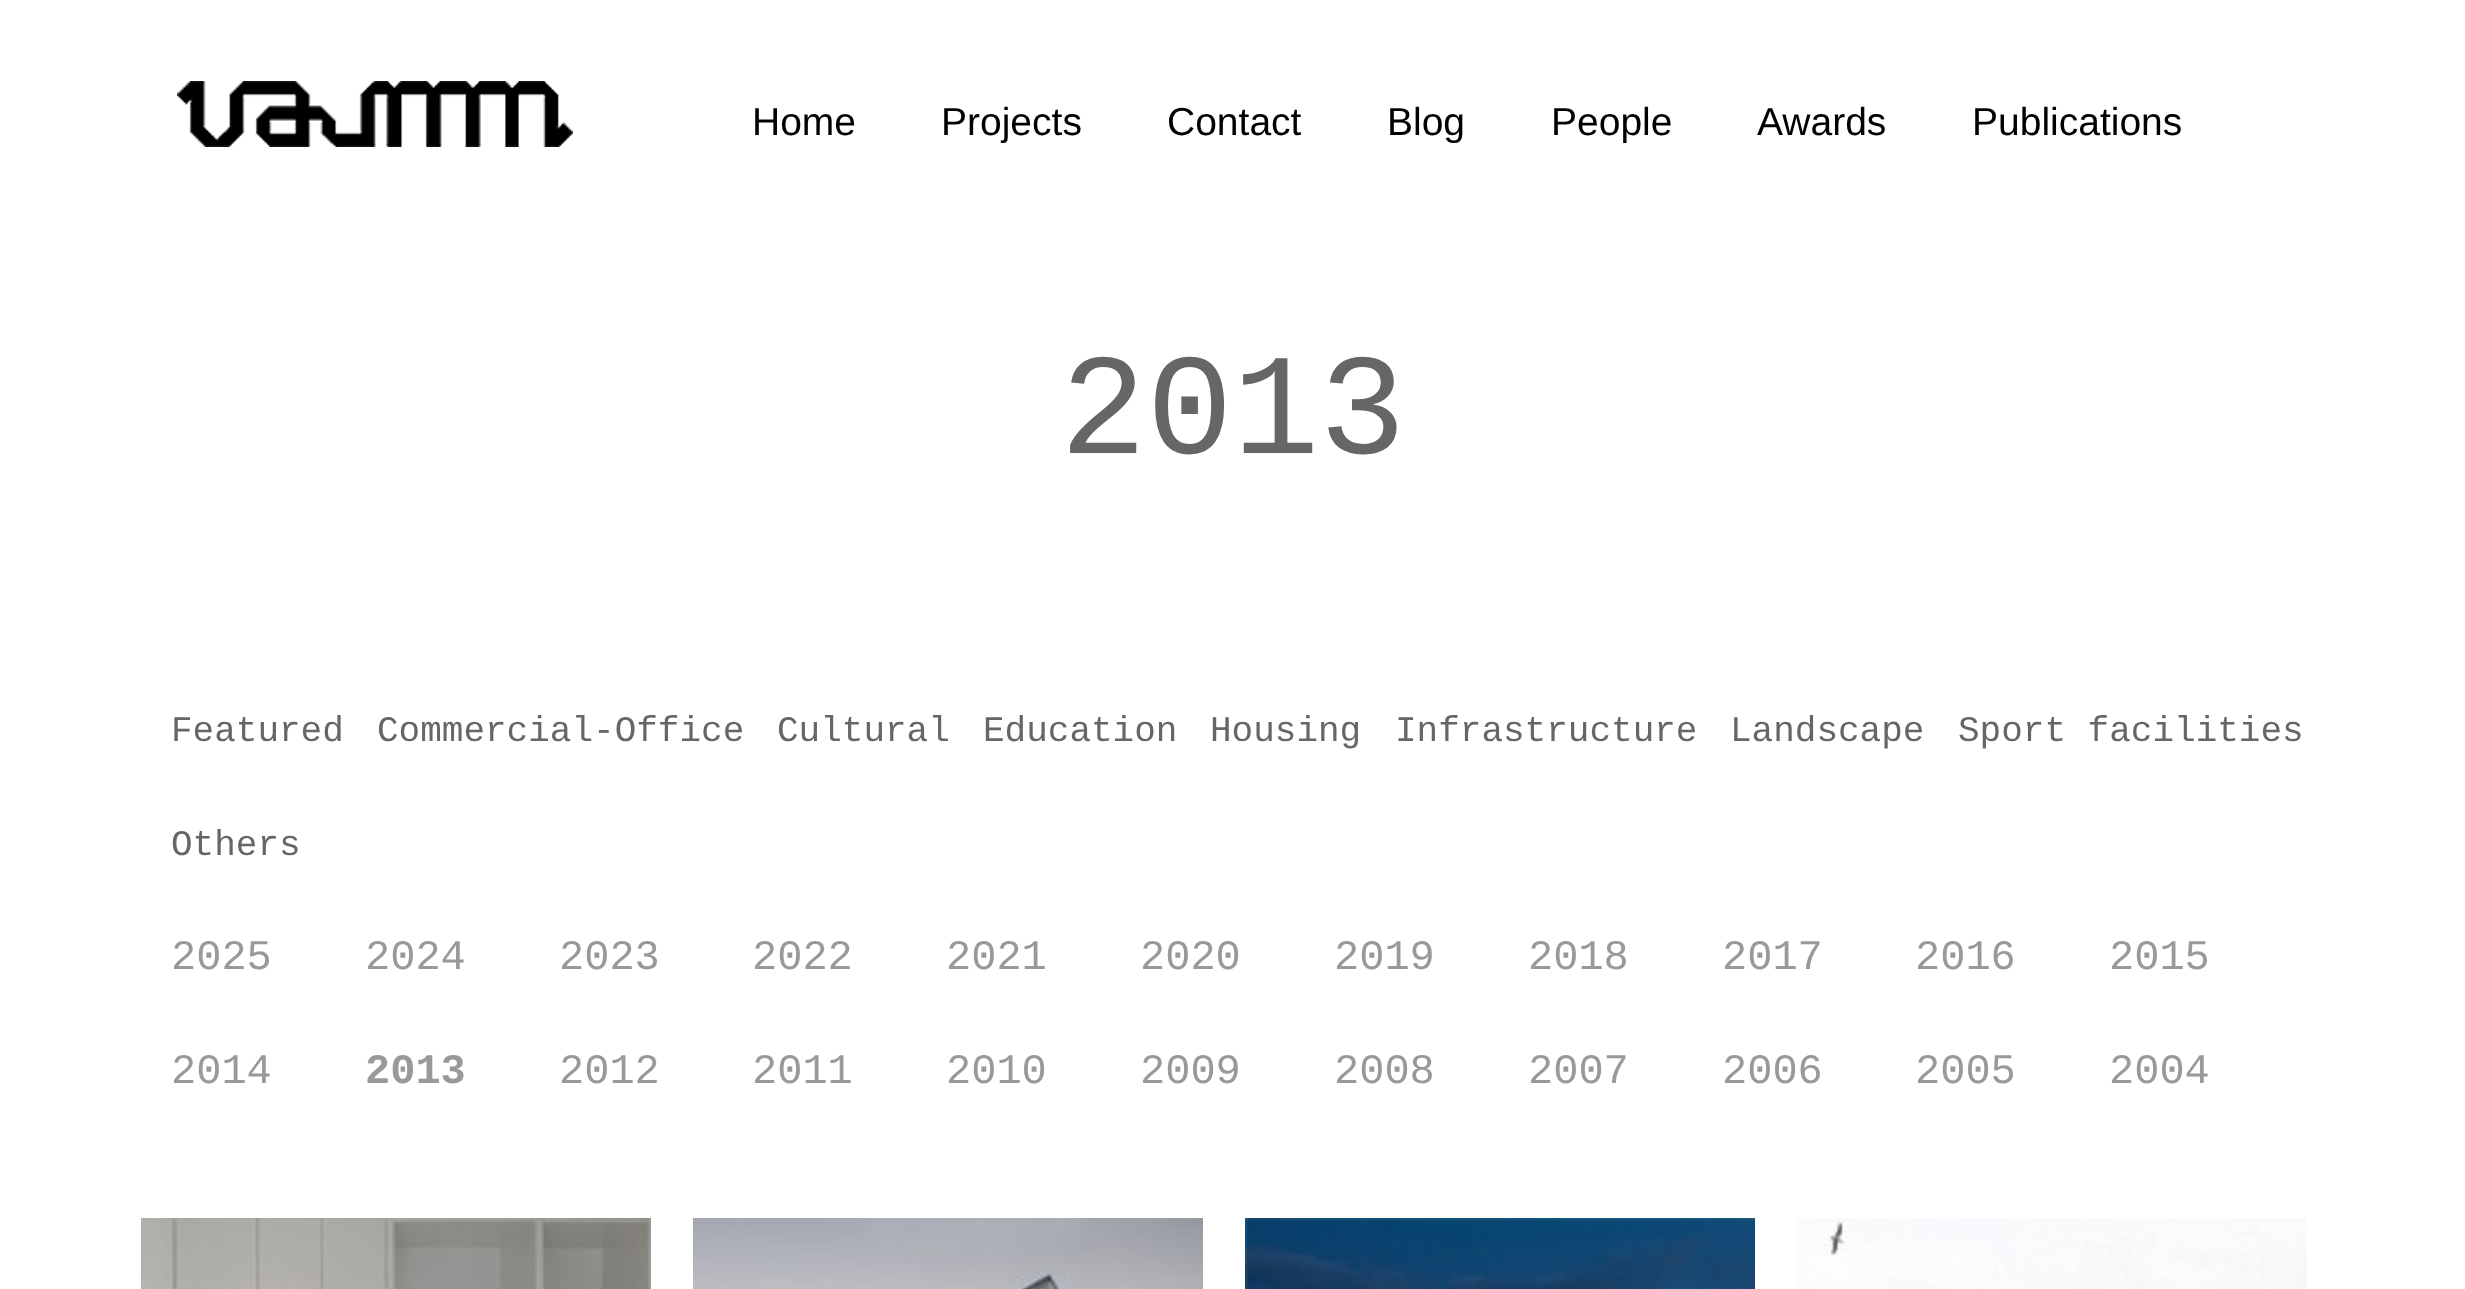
<!DOCTYPE html>
<meta charset="utf-8">
<style>body { margin: 0 } canvas { display: block }</style>
<canvas id="canvas" width="2465" height="1289"></canvas>
<img id="img1" src="img_01.png" hidden>
<img id="img2" src="img_02.png" hidden>
<img id="img3" src="img_03.png" hidden>
<img id="img4" src="img_04.png" hidden>
<img id="img5" src="img_05.png" hidden>
<script>
window.onload = function () {
	const canvas = document.getElementById("canvas");
	const ctx = canvas.getContext("2d");
	ctx.miterLimit = 4;
	ctx.fontKerning = "normal";
	function txt(s, x, y) {
		ctx.fillText(s, x, y);
	}
	function fill(x, y, w, h) {
		ctx.fillRect(x, y, w, h);
	}
	function img(id, x, y, w, h) {
		ctx.drawImage(document.getElementById(id), x, y, w, h);
	}

	ctx.fillStyle = "#FFFFFF";
	fill(0, 0, 2465, 1289);
	img("img1", 177, 81, 396, 66);
	img("img2", 141, 1218, 510, 71);
	img("img3", 693, 1218, 510, 71);
	img("img4", 1245, 1218, 510, 71);
	img("img5", 1797, 1218, 510, 71);
	ctx.font = "39px Liberation Sans";
	ctx.fillStyle = "#000000";
	txt("Home", 752, 135);
	txt("Projects", 941, 135);
	txt("Contact", 1167, 135);
	txt("Blog", 1387, 135);
	txt("People", 1551, 135);
	txt("Awards", 1757, 135);
	txt("Publications", 1972, 135);
	ctx.font = "144px Liberation Mono";
	ctx.fillStyle = "#666666";
	txt("2013", 1060, 453);
	ctx.font = "36px Liberation Mono";
	txt("Featured", 171, 741);
	txt("Commercial-Office", 377, 741);
	txt("Cultural", 777, 741);
	txt("Education", 983, 741);
	txt("Housing", 1210, 741);
	txt("Infrastructure", 1395, 741);
	txt("Landscape", 1730, 741);
	txt("Sport facilities", 1958, 741);
	txt("Others", 171, 855);
	ctx.font = "42px Liberation Mono";
	ctx.fillStyle = "#999999";
	txt("2025", 171, 969);
	txt("2024", 365, 969);
	txt("2023", 559, 969);
	txt("2022", 752, 969);
	txt("2021", 946, 969);
	txt("2020", 1140, 969);
	txt("2019", 1334, 969);
	txt("2018", 1528, 969);
	txt("2017", 1722, 969);
	txt("2016", 1915, 969);
	txt("2015", 2109, 969);
	txt("2014", 171, 1083);
	ctx.font = "bold 42px Liberation Mono";
	txt("2013", 365, 1083);
	ctx.font = "42px Liberation Mono";
	txt("2012", 559, 1083);
	txt("2011", 752, 1083);
	txt("2010", 946, 1083);
	txt("2009", 1140, 1083);
	txt("2008", 1334, 1083);
	txt("2007", 1528, 1083);
	txt("2006", 1722, 1083);
	txt("2005", 1915, 1083);
	txt("2004", 2109, 1083);
};
</script>
